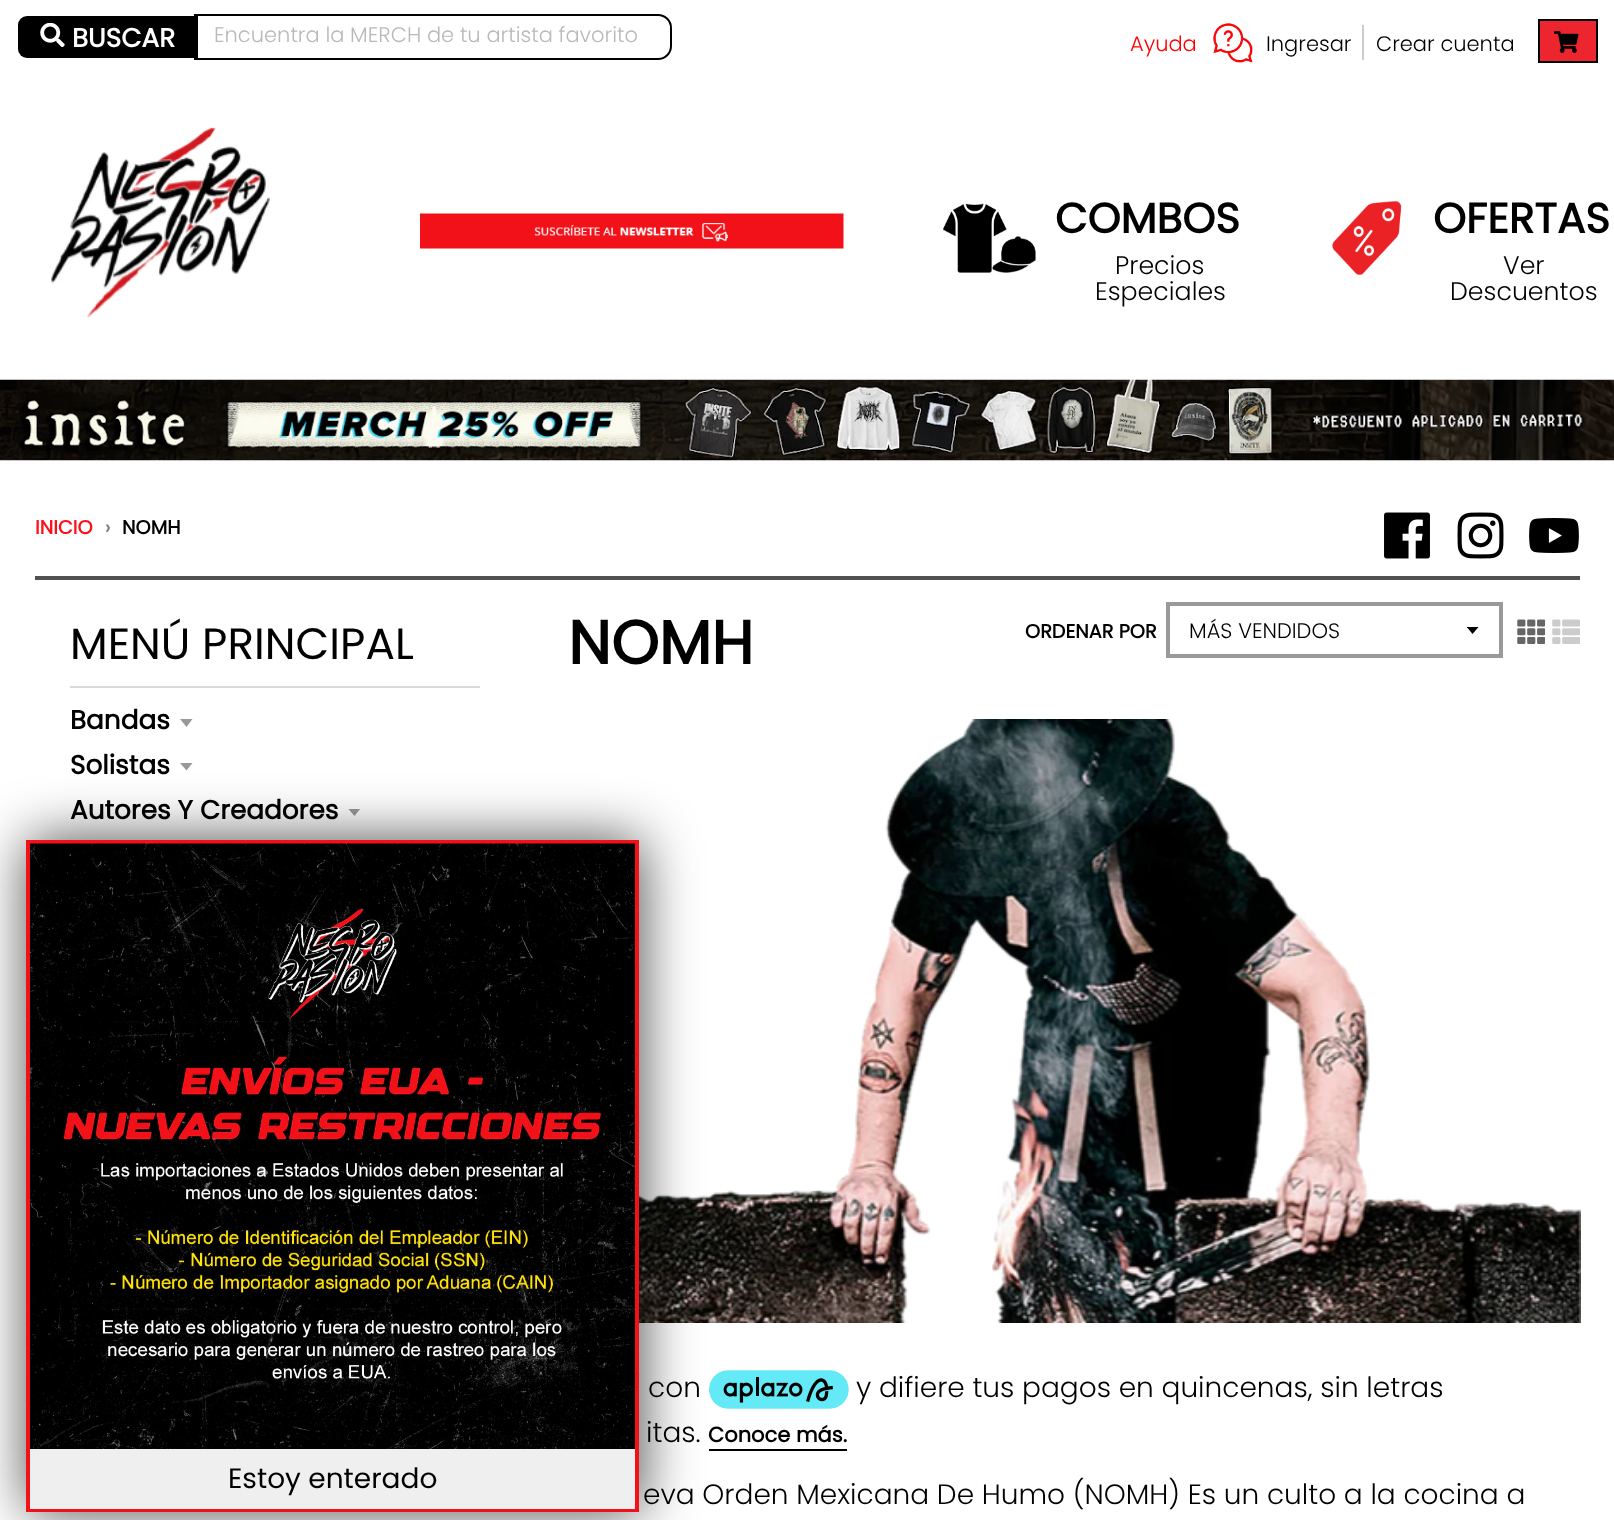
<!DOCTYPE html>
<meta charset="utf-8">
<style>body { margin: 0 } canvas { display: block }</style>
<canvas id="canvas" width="1614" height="1520"></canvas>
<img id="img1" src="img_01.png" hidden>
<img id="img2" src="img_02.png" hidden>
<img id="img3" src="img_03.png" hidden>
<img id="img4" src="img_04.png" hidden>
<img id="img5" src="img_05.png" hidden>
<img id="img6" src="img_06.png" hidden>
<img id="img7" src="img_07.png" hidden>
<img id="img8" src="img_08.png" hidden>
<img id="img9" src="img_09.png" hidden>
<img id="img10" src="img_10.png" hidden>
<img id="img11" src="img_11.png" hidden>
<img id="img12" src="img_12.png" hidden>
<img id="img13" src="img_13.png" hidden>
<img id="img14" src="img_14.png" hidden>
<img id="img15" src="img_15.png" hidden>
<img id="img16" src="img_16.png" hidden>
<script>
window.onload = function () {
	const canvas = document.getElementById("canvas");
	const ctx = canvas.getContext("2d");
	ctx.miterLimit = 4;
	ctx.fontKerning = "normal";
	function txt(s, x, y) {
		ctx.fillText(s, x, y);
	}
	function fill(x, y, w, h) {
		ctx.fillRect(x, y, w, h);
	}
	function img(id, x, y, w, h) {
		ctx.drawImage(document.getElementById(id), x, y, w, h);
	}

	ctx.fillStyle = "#FFFFFF";
	fill(0, 0, 1614, 1520);
	ctx.beginPath();
	ctx.roundRect(195, 15, 476, 44, [0, 13, 13, 0]);
	ctx.strokeStyle = "#000000";
	ctx.lineWidth = 2;
	ctx.stroke();
	ctx.fillStyle = "#000000";
	ctx.beginPath();
	ctx.roundRect(18, 16, 180, 42, [9, 0, 0, 9]);
	ctx.fill();
	img("img1", 40, 23, 25, 24);
	img("img2", 1213, 23, 40, 40);
	ctx.fillStyle = "#CCCCCC";
	fill(1362, 25, 2, 35);
	ctx.fillStyle = "#ED252F";
	ctx.beginPath();
	ctx.rect(1539, 20, 58, 42);
	ctx.fill();
	ctx.stroke();
	img("img3", 1554, 31, 25, 22);
	img("img4", 51, 127, 221, 191);
	img("img5", 420, 213, 424, 36);
	img("img6", 943, 203, 93, 70);
	img("img7", 1332, 201, 70, 74);
	img("img8", 0, 379, 1614, 82);
	img("img9", 1384, 512, 46, 47);
	img("img10", 1457, 512, 47, 47);
	img("img11", 1529, 518, 50, 35);
	ctx.fillStyle = "#515151";
	fill(35, 576, 1545, 4);
	ctx.fillStyle = "#DADADA";
	fill(70, 686, 410, 2);
	ctx.fillStyle = "#999999";
	ctx.beginPath();
	ctx.moveTo(180, 719);
	ctx.lineTo(186.5, 727);
	ctx.lineTo(192.5, 719);
	ctx.closePath();
	ctx.fill();
	ctx.beginPath();
	ctx.moveTo(180, 763);
	ctx.lineTo(186.5, 770.5);
	ctx.lineTo(192.5, 763);
	ctx.closePath();
	ctx.fill();
	ctx.save();
	ctx.beginPath();
	ctx.rect(348, 809, 14, 8);
	ctx.clip();
	ctx.beginPath();
	ctx.moveTo(348, 808.5);
	ctx.lineTo(354.5, 816);
	ctx.lineTo(360.5, 808.5);
	ctx.closePath();
	ctx.fill();
	ctx.restore();
	ctx.save();
	ctx.beginPath();
	ctx.rect(1467, 627, 14, 8);
	ctx.clip();
	ctx.fillStyle = "#000000";
	ctx.beginPath();
	ctx.moveTo(1466.5, 626.5);
	ctx.lineTo(1472.5, 634);
	ctx.lineTo(1479, 626.5);
	ctx.closePath();
	ctx.fill();
	ctx.restore();
	ctx.strokeStyle = "#999999";
	ctx.lineWidth = 4;
	ctx.strokeRect(1168, 604, 333, 52);
	img("img12", 1517, 619, 28, 25);
	img("img13", 1552, 619, 28, 25);
	img("img14", 639, 719, 942, 604);
	img("img15", 709, 1370, 140, 39);
	ctx.fillStyle = "#000000";
	fill(709, 1449, 138, 2);
	ctx.fillStyle = "rgba(0, 0, 0, 0.71)";
	ctx.filter = "blur(28px)";
	ctx.beginPath();
	ctx.rect(28, 840, 613, 672);
	ctx.fill();
	ctx.filter = "none";
	ctx.strokeStyle = "#F21119";
	ctx.strokeRect(28, 842, 609, 668);
	img("img16", 30, 843, 605, 606);
	ctx.fillStyle = "#EFEFEF";
	fill(30, 1449, 605, 60);
	ctx.font = "bold 26.25px Poppins";
	ctx.fillStyle = "#FFFFFF";
	txt("BUSCAR", 72, 47);
	ctx.font = "300 21px Poppins";
	ctx.fillStyle = "#B9B9B9";
	txt("Encuentra la MERCH de tu artista favorito", 214, 42);
	ctx.fillStyle = "#FF0000";
	txt("Ayuda", 1130, 51);
	ctx.fillStyle = "#000000";
	txt("Ingresar", 1266, 51);
	txt("Crear cuenta", 1376, 51);
	ctx.font = "bold 42px Poppins";
	txt("COMBOS", 1055, 233);
	ctx.font = "300 25.25px Poppins";
	txt("Precios", 1115, 274);
	txt("Especiales", 1095, 300);
	ctx.font = "bold 42px Poppins";
	txt("OFERTAS", 1433, 233);
	ctx.font = "300 25.25px Poppins";
	txt("Ver", 1503, 274);
	txt("Descuentos", 1450, 300);
	ctx.font = "bold 19.25px Poppins";
	ctx.fillStyle = "#FF0F18";
	txt("INICIO", 35, 534);
	ctx.fillStyle = "#7F7F7F";
	txt("›", 105, 534);
	ctx.fillStyle = "#000000";
	txt("NOMH", 122, 534);
	ctx.font = "43.75px Poppins";
	txt("MENÚ PRINCIPAL", 70, 659);
	ctx.font = "bold 26.25px Poppins";
	txt("Bandas", 70, 729);
	txt("Solistas", 70, 774);
	txt("Autores Y Creadores", 70, 819);
	ctx.font = "bold 61px Poppins";
	txt("NOMH", 568, 664);
	ctx.font = "bold 19.25px Poppins";
	txt("ORDENAR POR", 1025, 638);
	ctx.font = "300 21px Poppins";
	txt("MÁS VENDIDOS", 1189, 638);
	ctx.font = "300 28px Poppins";
	txt("con", 648, 1397);
	txt("y difiere tus pagos en quincenas, sin letras", 856, 1397);
	txt("itas.", 646, 1442);
	ctx.font = "bold 21px Poppins";
	txt("Conoce más.", 708, 1442);
	ctx.font = "300 28px Poppins";
	txt("eva Orden Mexicana De Humo (NOMH) Es un culto a la cocina a", 643, 1504);
	ctx.font = "28px Poppins";
	txt("Estoy enterado", 228, 1488);
};
</script>
